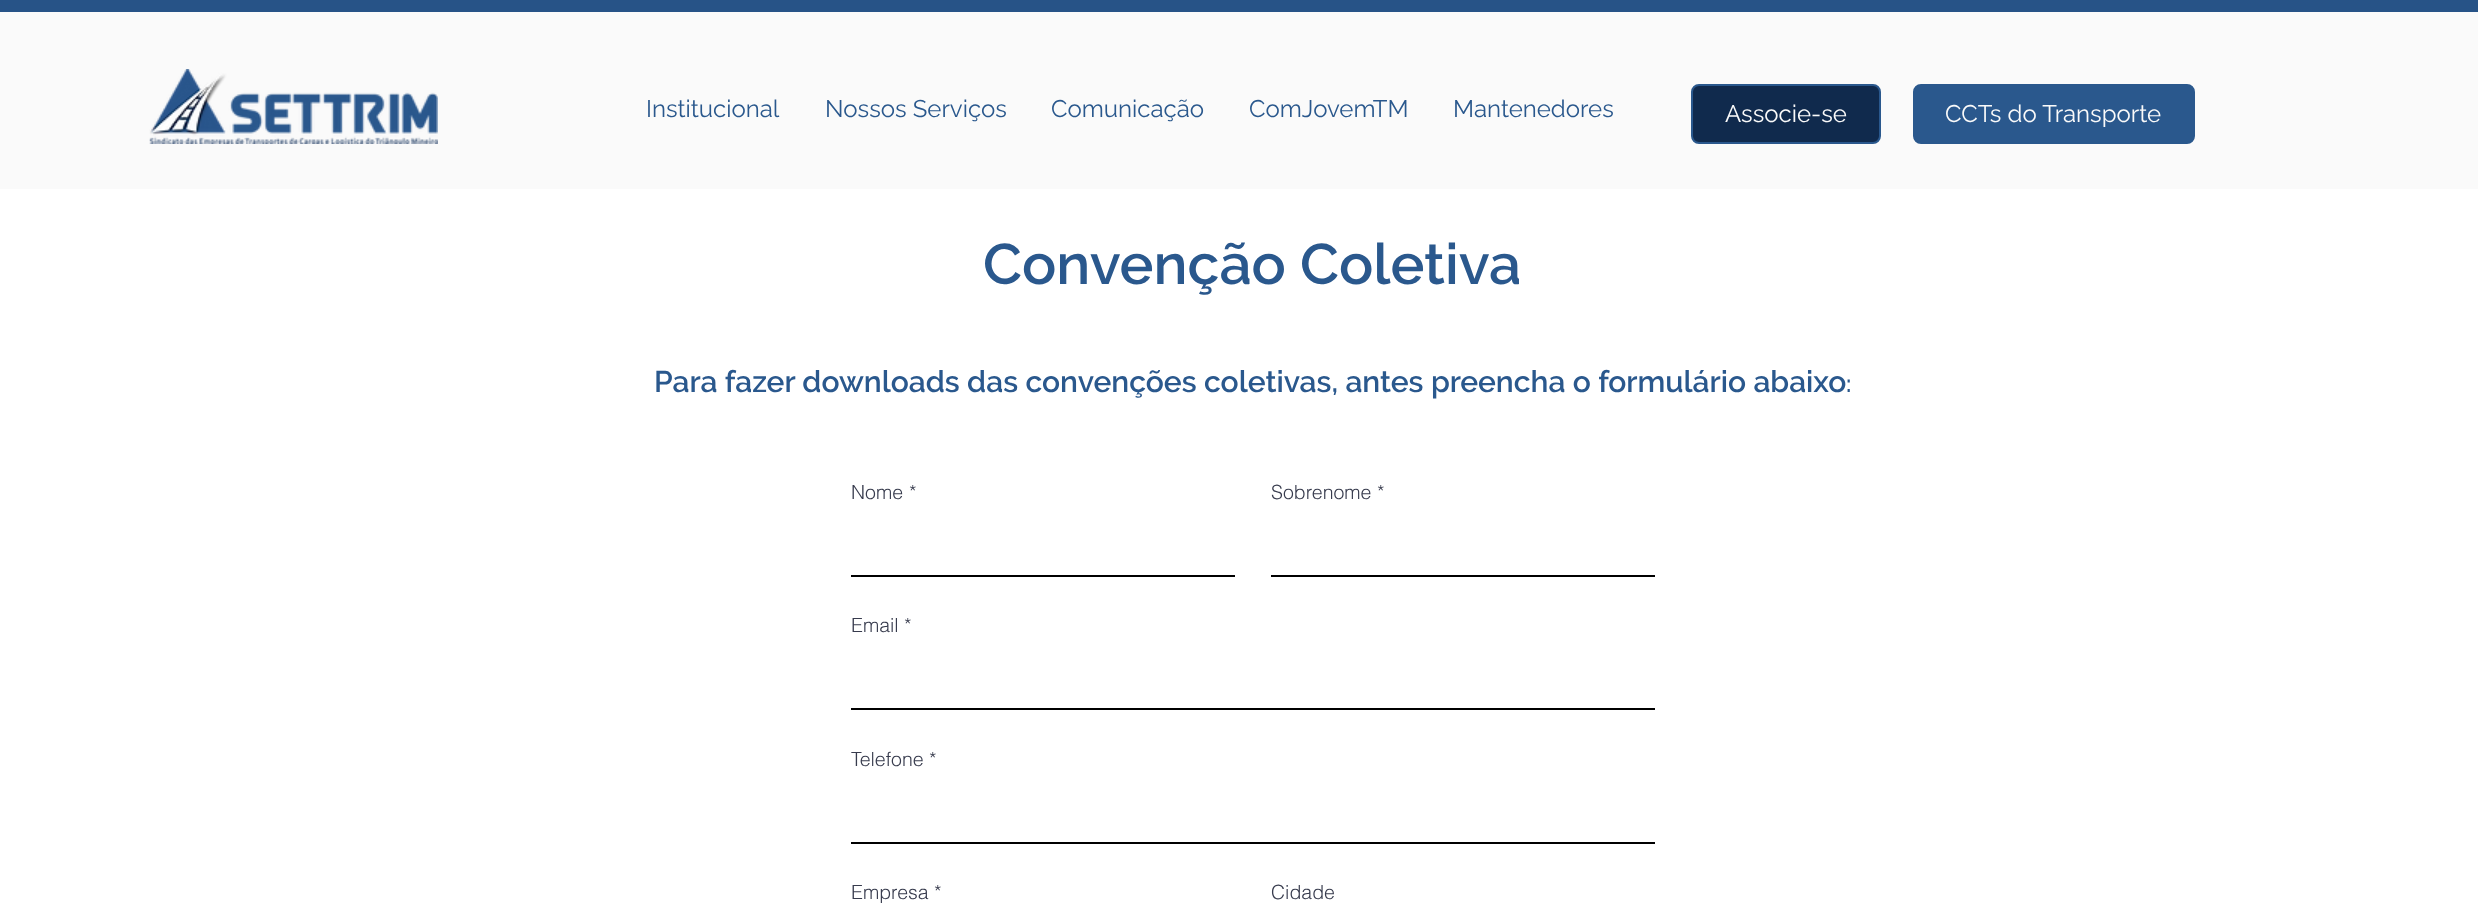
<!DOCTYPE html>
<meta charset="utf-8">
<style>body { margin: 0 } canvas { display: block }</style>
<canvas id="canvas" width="2478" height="921"></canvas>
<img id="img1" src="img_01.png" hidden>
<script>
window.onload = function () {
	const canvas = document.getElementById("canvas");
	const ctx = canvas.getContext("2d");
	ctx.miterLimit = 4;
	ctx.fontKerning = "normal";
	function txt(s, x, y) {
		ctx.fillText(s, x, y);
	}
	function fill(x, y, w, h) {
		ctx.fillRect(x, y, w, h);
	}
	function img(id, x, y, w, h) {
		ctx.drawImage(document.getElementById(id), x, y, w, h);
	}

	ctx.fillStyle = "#FAFAFA";
	fill(0, 0, 2478, 921);
	ctx.fillStyle = "#275387";
	fill(0, 0, 2478, 12);
	img("img1", 149, 69, 289, 75);
	ctx.fillStyle = "#102A4D";
	ctx.beginPath();
	ctx.roundRect(1692, 85, 188, 58, 7);
	ctx.fill();
	ctx.strokeStyle = "#2A588D";
	ctx.lineWidth = 2;
	ctx.stroke();
	ctx.fillStyle = "#2A588D";
	ctx.beginPath();
	ctx.roundRect(1914, 85, 280, 58, 7);
	ctx.fill();
	ctx.stroke();
	ctx.fillStyle = "#FFFFFF";
	fill(0, 189, 2478, 732);
	ctx.fillStyle = "#000000";
	fill(851, 575, 384, 2);
	fill(1271, 575, 384, 2);
	fill(851, 708, 804, 2);
	fill(851, 842, 804, 2);
	ctx.font = "24px Raleway";
	ctx.fillStyle = "#2A588D";
	txt("Institucional", 646, 117);
	txt("Nossos Serviços", 825, 117);
	txt("Comunicação", 1051, 117);
	txt("ComJovemTM", 1249, 117);
	txt("Mantenedores", 1453, 117);
	ctx.fillStyle = "#FAFAFA";
	txt("Associe-se", 1725, 122);
	txt("CCTs do Transporte", 1945, 122);
	ctx.font = "600 57px Raleway";
	ctx.fillStyle = "#2A588D";
	txt("Convenção Coletiva", 983, 284);
	ctx.font = "600 30px Raleway";
	txt("Para fazer downloads das convenções coletivas, antes preencha o formulário abaixo", 654, 392);
	ctx.font = "600 24px Raleway";
	txt(":", 1846, 392);
	ctx.font = "300 19.5px helvetica";
	ctx.fillStyle = "#373B4D";
	txt("Nome", 851, 499);
	txt("*", 909, 499);
	txt("Sobrenome", 1271, 499);
	txt("*", 1377, 499);
	txt("Email", 851, 632);
	txt("*", 904, 632);
	txt("Telefone", 851, 766);
	txt("*", 929, 766);
	txt("Empresa", 851, 899);
	txt("*", 934, 899);
	txt("Cidade", 1271, 899);
};
</script>
